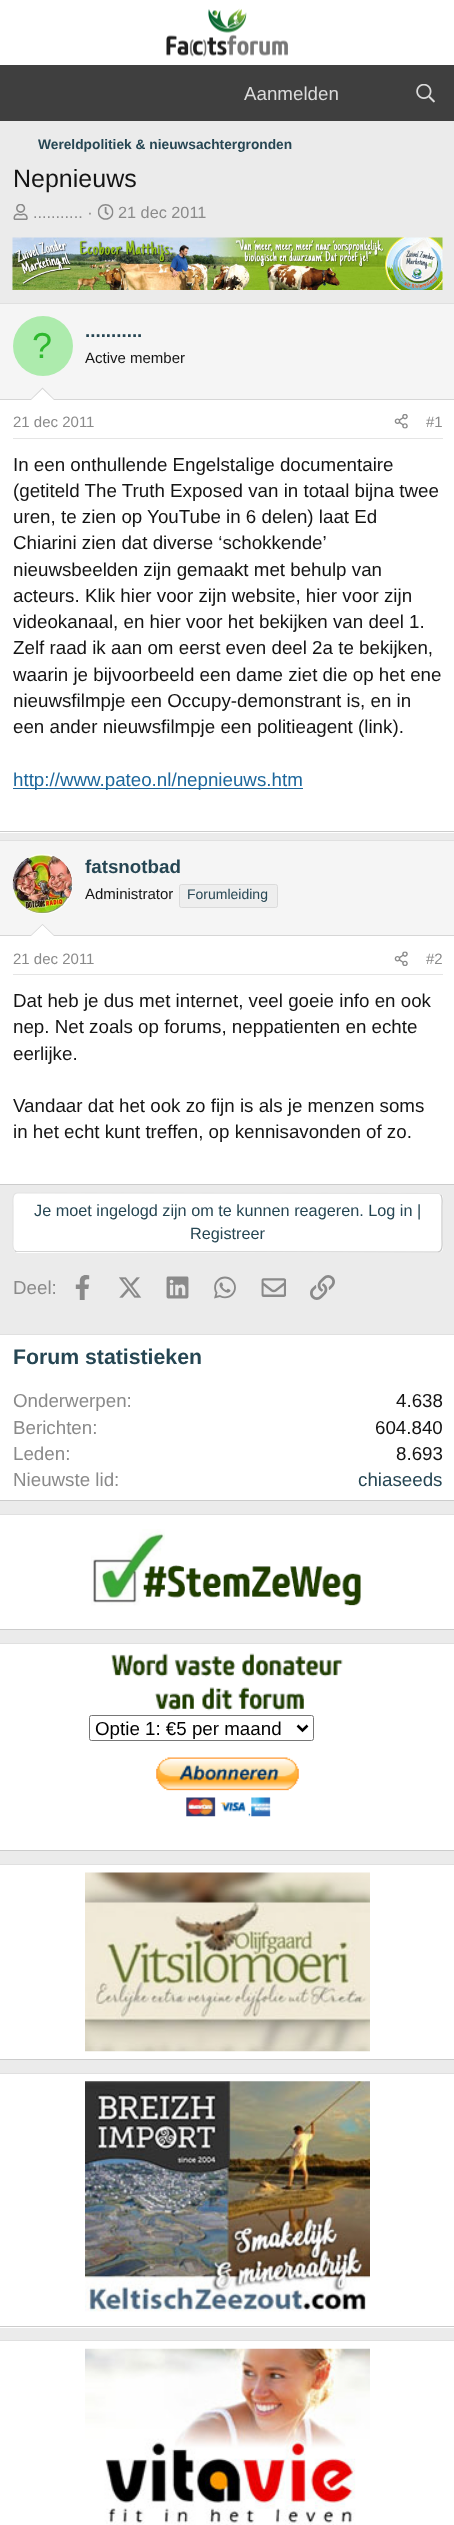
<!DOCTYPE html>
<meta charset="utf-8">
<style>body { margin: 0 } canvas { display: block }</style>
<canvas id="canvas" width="454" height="2525"></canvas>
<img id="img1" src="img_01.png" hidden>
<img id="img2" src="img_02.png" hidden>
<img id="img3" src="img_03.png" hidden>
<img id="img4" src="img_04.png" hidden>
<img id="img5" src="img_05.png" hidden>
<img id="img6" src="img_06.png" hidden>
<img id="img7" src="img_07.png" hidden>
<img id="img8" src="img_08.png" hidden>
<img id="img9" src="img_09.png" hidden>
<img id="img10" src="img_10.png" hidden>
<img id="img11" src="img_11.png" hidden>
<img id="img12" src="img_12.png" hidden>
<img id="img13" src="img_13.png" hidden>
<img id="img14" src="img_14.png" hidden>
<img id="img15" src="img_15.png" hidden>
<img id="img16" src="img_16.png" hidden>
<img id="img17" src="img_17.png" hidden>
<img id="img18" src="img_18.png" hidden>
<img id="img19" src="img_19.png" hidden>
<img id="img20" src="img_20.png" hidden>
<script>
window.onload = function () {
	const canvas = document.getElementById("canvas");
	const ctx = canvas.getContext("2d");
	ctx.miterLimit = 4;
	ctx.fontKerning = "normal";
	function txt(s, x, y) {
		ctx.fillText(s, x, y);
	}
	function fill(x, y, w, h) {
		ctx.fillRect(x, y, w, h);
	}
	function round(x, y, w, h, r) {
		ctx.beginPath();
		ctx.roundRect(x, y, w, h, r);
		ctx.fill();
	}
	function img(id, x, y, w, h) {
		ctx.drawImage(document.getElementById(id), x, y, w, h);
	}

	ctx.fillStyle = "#EBEBEB";
	fill(0, 0, 454, 2525);
	ctx.fillStyle = "#FFFFFF";
	fill(0, 0, 454, 65);
	img("img1", 166, 8, 122, 49);
	ctx.fillStyle = "#3F3F3F";
	fill(0, 65, 454, 56);
	img("img2", 416, 84, 19, 19);
	img("img3", 13, 204, 15, 16);
	img("img4", 97, 204, 17, 16);
	img("img5", 12, 237, 431, 53);
	ctx.fillStyle = "#FFFFFF";
	fill(0, 400, 454, 433);
	ctx.fillStyle = "#E0E0E0";
	fill(0, 303, 454, 1);
	ctx.fillStyle = "#CCCCCC";
	fill(0, 831, 454, 1);
	ctx.fillStyle = "#F5F5F5";
	fill(0, 304, 454, 95);
	ctx.fillStyle = "#D6D6D6";
	fill(0, 399, 454, 1);
	ctx.fillStyle = "#ADEBAD";
	ctx.beginPath();
	ctx.arc(43, 346, 30, 0, Math.PI * 2);
	ctx.fill();
	ctx.fillStyle = "#D6D6D6";
	ctx.beginPath();
	ctx.moveTo(55, 400);
	ctx.lineTo(30, 400);
	ctx.lineTo(42.5, 387.5);
	ctx.closePath();
	ctx.fill();
	ctx.fillStyle = "#FFFFFF";
	ctx.beginPath();
	ctx.moveTo(54, 400);
	ctx.lineTo(31, 400);
	ctx.lineTo(42.5, 389);
	ctx.closePath();
	ctx.fill();
	ctx.fillStyle = "#E5E5E5";
	fill(13, 438, 430, 1);
	img("img6", 394, 414, 14, 15);
	ctx.fillStyle = "#1D679C";
	fill(13, 788, 290, 1);
	ctx.fillStyle = "#FFFFFF";
	fill(0, 936, 454, 248);
	ctx.fillStyle = "#E0E0E0";
	fill(0, 840, 454, 1);
	ctx.fillStyle = "#CCCCCC";
	fill(0, 1184, 454, 1);
	ctx.fillStyle = "#F5F5F5";
	fill(0, 841, 454, 94);
	ctx.fillStyle = "#D6D6D6";
	fill(0, 935, 454, 1);
	ctx.fillStyle = "#FFFFFF";
	ctx.beginPath();
	ctx.arc(43, 884, 30, 0, Math.PI * 2);
	ctx.fill();
	img("img7", 12, 854, 61, 60);
	ctx.fillStyle = "#EEEEEE";
	ctx.beginPath();
	ctx.roundRect(179.5, 884.5, 98, 23, 2);
	ctx.fill();
	ctx.strokeStyle = "#DBDBDB";
	ctx.stroke();
	ctx.fillStyle = "#D6D6D6";
	ctx.beginPath();
	ctx.moveTo(55, 936);
	ctx.lineTo(30, 936);
	ctx.lineTo(42.5, 924);
	ctx.closePath();
	ctx.fill();
	ctx.fillStyle = "#FFFFFF";
	ctx.beginPath();
	ctx.moveTo(54, 936);
	ctx.lineTo(31, 936);
	ctx.lineTo(42.5, 925);
	ctx.closePath();
	ctx.fill();
	ctx.fillStyle = "#E5E5E5";
	fill(13, 974, 430, 1);
	img("img8", 394, 951, 14, 15);
	ctx.fillStyle = "#FFFFFF";
	round(13, 1193, 430, 60, 5);
	ctx.beginPath();
	ctx.moveTo(440.5, 1194.5);
	ctx.bezierCurveTo(443, 1197, 442, 1204, 442, 1206);
	ctx.lineTo(442, 1239);
	ctx.bezierCurveTo(442, 1242.5, 443.5, 1252, 437.5, 1252);
	ctx.lineTo(16, 1251.5);
	ctx.lineTo(14.5, 1250.5);
	ctx.strokeStyle = "#C9C9C9";
	ctx.lineWidth = 1.2;
	ctx.stroke();
	ctx.beginPath();
	ctx.moveTo(14.5, 1250.5);
	ctx.bezierCurveTo(12, 1248, 13, 1241, 13, 1239);
	ctx.lineTo(13, 1206);
	ctx.bezierCurveTo(13, 1202.5, 11.5, 1193, 17.5, 1193);
	ctx.lineTo(439, 1193.5);
	ctx.lineTo(440.5, 1194.5);
	ctx.strokeStyle = "#E3E3E3";
	ctx.stroke();
	img("img9", 75, 1275, 15, 25);
	img("img10", 119, 1277, 23, 21);
	img("img11", 166, 1276, 23, 23);
	img("img12", 214, 1276, 22, 23);
	img("img13", 261, 1278, 25, 19);
	img("img14", 310, 1275, 25, 25);
	fill(0, 1335, 454, 165);
	ctx.fillStyle = "#E0E0E0";
	fill(0, 1334, 454, 1);
	ctx.fillStyle = "#CCCCCC";
	fill(0, 1500, 454, 1);
	ctx.fillStyle = "#FFFFFF";
	fill(0, 1515, 454, 114);
	ctx.fillStyle = "#E0E0E0";
	fill(0, 1514, 454, 1);
	ctx.fillStyle = "#CCCCCC";
	fill(0, 1629, 454, 1);
	img("img15", 91, 1529, 270, 77);
	ctx.fillStyle = "#FFFFFF";
	fill(0, 1644, 454, 206);
	ctx.fillStyle = "#E0E0E0";
	fill(0, 1643, 454, 1);
	ctx.fillStyle = "#CCCCCC";
	fill(0, 1850, 454, 1);
	img("img16", 111, 1653, 232, 58);
	ctx.beginPath();
	ctx.roundRect(89.5, 1715.5, 224, 25, 2);
	ctx.strokeStyle = "#767676";
	ctx.lineWidth = 1;
	ctx.stroke();
	ctx.beginPath();
	ctx.moveTo(297.5, 1725.5);
	ctx.lineTo(302.5, 1730.5);
	ctx.lineTo(307.5, 1725.5);
	ctx.strokeStyle = "#000000";
	ctx.lineWidth = 2.5;
	ctx.stroke();
	img("img17", 156, 1757, 143, 60);
	ctx.fillStyle = "#FFFFFF";
	fill(0, 1865, 454, 194);
	ctx.fillStyle = "#E0E0E0";
	fill(0, 1864, 454, 1);
	ctx.fillStyle = "#CCCCCC";
	fill(0, 2059, 454, 1);
	img("img18", 85, 1872, 285, 180);
	ctx.fillStyle = "#FFFFFF";
	fill(0, 2074, 454, 254);
	ctx.fillStyle = "#E0E0E0";
	fill(0, 2073, 454, 1);
	ctx.fillStyle = "#CCCCCC";
	fill(0, 2326, 454, 1);
	img("img19", 85, 2081, 285, 231);
	ctx.fillStyle = "#FFFFFF";
	fill(0, 2341, 454, 184);
	ctx.fillStyle = "#E0E0E0";
	fill(0, 2340, 454, 1);
	img("img20", 85, 2348, 285, 177);
	ctx.font = "18.75px Liberation Sans";
	ctx.fillStyle = "#DBDBDB";
	txt("Aanmelden", 244, 100);
	ctx.font = "bold 13.75px Liberation Sans";
	ctx.fillStyle = "#264653";
	txt("Wereldpolitiek & nieuwsachtergronden", 38, 149);
	ctx.font = "25px Liberation Sans";
	ctx.fillStyle = "#141414";
	txt("Nepnieuws", 13, 187);
	ctx.font = "16.25px Liberation Sans";
	ctx.fillStyle = "#8A8A8A";
	txt("........... ·", 33, 218);
	txt("21 dec 2011", 118, 218);
	ctx.font = "36px Liberation Sans";
	ctx.fillStyle = "#2EB82E";
	txt("?", 32, 358);
	ctx.font = "bold 18.75px Liberation Sans";
	ctx.fillStyle = "#264653";
	txt("...........", 85, 337);
	ctx.font = "15px Liberation Sans";
	ctx.fillStyle = "#141414";
	txt("Active member", 85, 363);
	ctx.fillStyle = "#8A8A8A";
	txt("21 dec 2011", 13, 427);
	txt("#1", 426, 427);
	ctx.font = "18.75px Liberation Sans";
	ctx.fillStyle = "#141414";
	txt("In een onthullende Engelstalige documentaire", 13, 471);
	txt("(getiteld The Truth Exposed van in totaal bijna twee", 13, 497);
	txt("uren, te zien op YouTube in 6 delen) laat Ed", 13, 523);
	txt("Chiarini zien dat diverse ‘schokkende’", 13, 549);
	txt("nieuwsbeelden zijn gemaakt met behulp van", 13, 576);
	txt("acteurs. Klik hier voor zijn website, hier voor zijn", 13, 602);
	txt("videokanaal, en hier voor het bekijken van deel 1.", 13, 628);
	txt("Zelf raad ik aan om eerst even deel 2a te bekijken,", 13, 654);
	txt("waarin je bijvoorbeeld een dame ziet die op het ene", 13, 681);
	txt("nieuwsfilmpje een Occupy-demonstrant is, en in", 13, 707);
	txt("een ander nieuwsfilmpje een politieagent (link).", 13, 733);
	ctx.fillStyle = "#1D679C";
	txt("http://www.pateo.nl/nepnieuws.htm", 13, 786);
	ctx.font = "bold 18.75px Liberation Sans";
	ctx.fillStyle = "#264653";
	txt("fatsnotbad", 85, 873);
	ctx.font = "15px Liberation Sans";
	ctx.fillStyle = "#141414";
	txt("Administrator", 85, 899);
	ctx.font = "14px Liberation Sans";
	ctx.fillStyle = "#264653";
	txt("Forumleiding", 187, 899);
	ctx.font = "15px Liberation Sans";
	ctx.fillStyle = "#8A8A8A";
	txt("21 dec 2011", 13, 964);
	txt("#2", 426, 964);
	ctx.font = "18.75px Liberation Sans";
	ctx.fillStyle = "#141414";
	txt("Dat heb je dus met internet, veel goeie info en ook", 13, 1007);
	txt("nep. Net zoals op forums, neppatienten en echte", 13, 1033);
	txt("eerlijke.", 13, 1060);
	txt("Vandaar dat het ook zo fijn is als je menzen soms", 13, 1112);
	txt("in het echt kunt treffen, op kennisavonden of zo.", 13, 1138);
	ctx.font = "16.25px Liberation Sans";
	ctx.fillStyle = "#264653";
	txt("Je moet ingelogd zijn om te kunnen reageren. Log in |", 34, 1216);
	txt("Registreer", 190, 1239);
	ctx.font = "18.75px Liberation Sans";
	ctx.fillStyle = "#8A8A8A";
	txt("Deel:", 13, 1294);
	ctx.font = "bold 21.25px Liberation Sans";
	ctx.fillStyle = "#264653";
	txt("Forum statistieken", 13, 1364);
	ctx.font = "18.75px Liberation Sans";
	ctx.fillStyle = "#8A8A8A";
	txt("Onderwerpen:", 13, 1407);
	ctx.fillStyle = "#141414";
	txt("4.638", 396, 1407);
	ctx.fillStyle = "#8A8A8A";
	txt("Berichten:", 13, 1434);
	ctx.fillStyle = "#141414";
	txt("604.840", 375, 1434);
	ctx.fillStyle = "#8A8A8A";
	txt("Leden:", 13, 1460);
	ctx.fillStyle = "#141414";
	txt("8.693", 396, 1460);
	ctx.fillStyle = "#8A8A8A";
	txt("Nieuwste lid:", 13, 1486);
	ctx.fillStyle = "#264653";
	txt("chiaseeds", 358, 1486);
	ctx.fillStyle = "#000000";
	txt("Optie 1: €5 per maand", 95, 1735);
};
</script>
